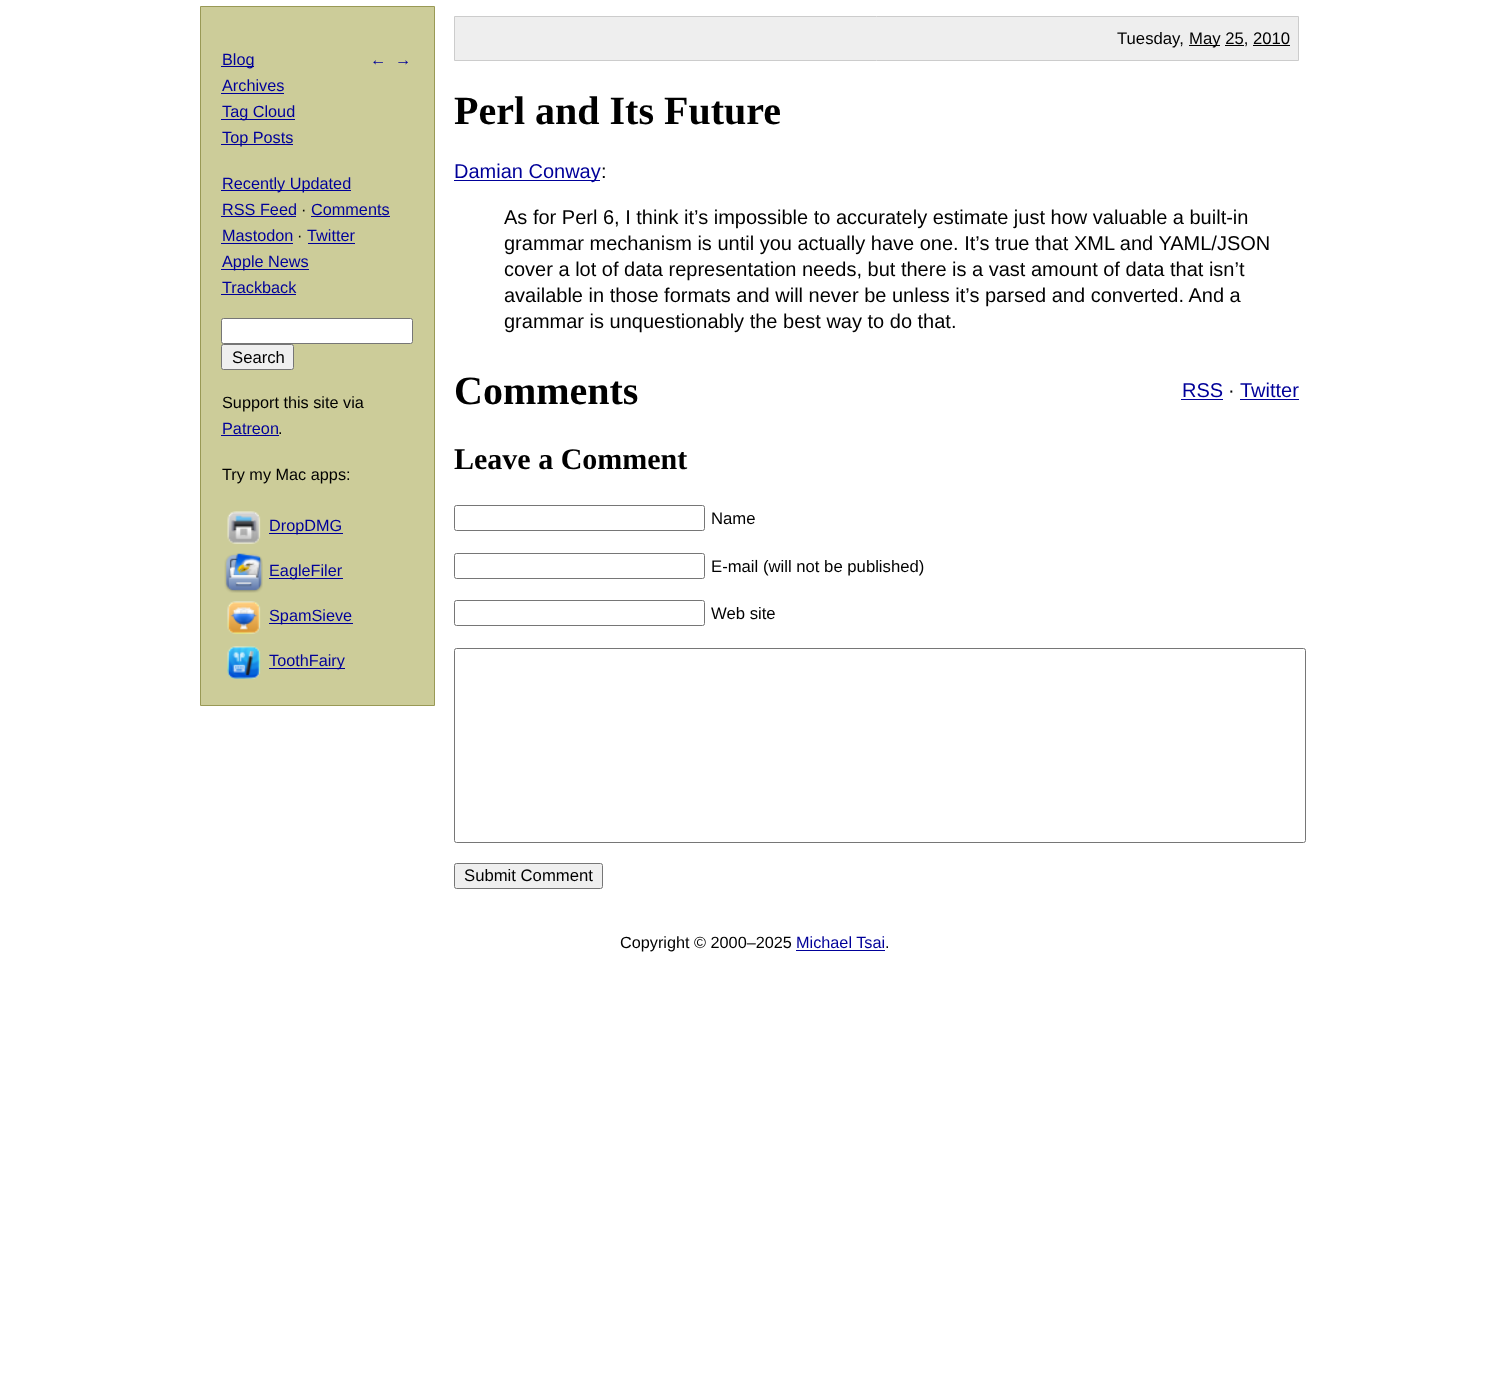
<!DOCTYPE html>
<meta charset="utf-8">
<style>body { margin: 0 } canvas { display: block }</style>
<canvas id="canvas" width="1510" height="1387"></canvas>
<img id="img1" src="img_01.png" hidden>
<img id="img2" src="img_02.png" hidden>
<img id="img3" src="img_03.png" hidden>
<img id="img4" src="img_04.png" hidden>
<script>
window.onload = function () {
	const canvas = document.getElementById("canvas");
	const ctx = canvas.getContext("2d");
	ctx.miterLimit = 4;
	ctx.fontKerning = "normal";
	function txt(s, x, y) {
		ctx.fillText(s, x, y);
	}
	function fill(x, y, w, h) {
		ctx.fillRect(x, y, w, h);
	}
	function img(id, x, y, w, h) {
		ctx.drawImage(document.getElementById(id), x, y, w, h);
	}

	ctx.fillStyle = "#FFFFFF";
	fill(0, 0, 1510, 1387);
	ctx.fillStyle = "#CCCC99";
	ctx.beginPath();
	ctx.rect(200.5, 6.5, 234, 699);
	ctx.fill();
	ctx.strokeStyle = "#999955";
	ctx.stroke();
	ctx.fillStyle = "#000099";
	fill(221, 66, 33, 1);
	fill(221, 93, 63, 1);
	fill(221, 119, 74, 1);
	fill(221, 144, 72, 1);
	fill(221, 190, 130, 1);
	fill(221, 216, 75, 1);
	fill(311, 216, 79, 1);
	fill(221, 243, 72, 1);
	fill(308, 243, 47, 1);
	fill(221, 269, 88, 1);
	fill(221, 294, 75, 1);
	ctx.fillStyle = "#FFFFFF";
	ctx.beginPath();
	ctx.roundRect(221.5, 318.5, 191, 25, 2);
	ctx.fill();
	ctx.strokeStyle = "#767676";
	ctx.stroke();
	ctx.fillStyle = "#EFEFEF";
	ctx.beginPath();
	ctx.roundRect(221.5, 344.5, 72, 25, 2);
	ctx.fill();
	ctx.stroke();
	ctx.fillStyle = "#000099";
	fill(221, 435, 58, 1);
	img("img1", 227, 511, 34, 33);
	fill(269, 533, 74, 1);
	img("img2", 224, 553, 39, 40);
	fill(269, 578, 74, 1);
	img("img3", 227, 601, 34, 33);
	fill(269, 623, 84, 1);
	img("img4", 227, 646, 34, 33);
	fill(269, 668, 76, 1);
	ctx.fillStyle = "#EEEEEE";
	ctx.beginPath();
	ctx.rect(454.5, 16.5, 844, 44);
	ctx.fill();
	ctx.strokeStyle = "#CCCCCC";
	ctx.stroke();
	ctx.fillStyle = "#000000";
	fill(1189, 45, 31, 1);
	fill(1225, 45, 19, 1);
	fill(1253, 45, 37, 1);
	ctx.fillStyle = "#000099";
	fill(454, 180, 146, 1);
	fill(1181, 399, 42, 1);
	fill(1240, 399, 59, 1);
	ctx.beginPath();
	ctx.roundRect(454.5, 505.5, 250, 25, 2);
	ctx.strokeStyle = "#767676";
	ctx.stroke();
	ctx.beginPath();
	ctx.roundRect(454.5, 553.5, 250, 25, 2);
	ctx.stroke();
	ctx.beginPath();
	ctx.roundRect(454.5, 600.5, 250, 25, 2);
	ctx.stroke();
	ctx.beginPath();
	ctx.roundRect(454.5, 648.5, 851, 194, 2);
	ctx.stroke();
	ctx.fillStyle = "#EFEFEF";
	ctx.beginPath();
	ctx.roundRect(454.5, 863.5, 148, 25, 2);
	ctx.fill();
	ctx.stroke();
	ctx.fillStyle = "#000099";
	fill(796, 950, 89, 1);
	ctx.font = "16.25px Liberation Sans";
	txt("Blog", 222, 65);
	txt("Archives", 222, 91);
	txt("Tag Cloud", 222, 117);
	txt("Top Posts", 222, 143);
	txt("Recently Updated", 222, 189);
	txt("RSS Feed", 222, 215);
	ctx.fillStyle = "#000000";
	txt("·", 301, 215);
	ctx.fillStyle = "#000099";
	txt("Comments", 311, 215);
	txt("Mastodon", 222, 241);
	ctx.fillStyle = "#000000";
	txt("·", 297, 241);
	ctx.fillStyle = "#000099";
	txt("Twitter", 307, 241);
	txt("Apple News", 222, 267);
	txt("Trackback", 222, 293);
	txt("←", 370, 65);
	txt("→", 395, 65);
	ctx.font = "16.7px Liberation Sans";
	ctx.fillStyle = "#000000";
	txt("Search", 232, 363);
	ctx.font = "16.25px Liberation Sans";
	txt("Support this site via", 222, 408);
	ctx.fillStyle = "#000099";
	txt("Patreon", 222, 434);
	ctx.fillStyle = "#000000";
	txt(".", 278, 434);
	txt("Try my Mac apps:", 222, 480);
	ctx.fillStyle = "#000099";
	txt("DropDMG", 269, 531);
	txt("EagleFiler", 269, 576);
	txt("SpamSieve", 269, 621);
	txt("ToothFairy", 269, 666);
	ctx.font = "16.7px Liberation Sans";
	ctx.fillStyle = "#000000";
	txt("Tuesday,", 1117, 44);
	txt("May 25, 2010", 1189, 44);
	ctx.font = "bold 40px Liberation Serif";
	txt("Perl and Its Future", 454, 124);
	ctx.font = "20px Liberation Sans";
	ctx.fillStyle = "#000099";
	txt("Damian Conway", 454, 178);
	ctx.fillStyle = "#000000";
	txt(":", 601, 178);
	txt("As for Perl 6, I think it’s impossible to accurately estimate just how valuable a built-in", 504, 224);
	txt("grammar mechanism is until you actually have one. It’s true that XML and YAML/JSON", 504, 250);
	txt("cover a lot of data representation needs, but there is a vast amount of data that isn’t", 504, 276);
	txt("available in those formats and will never be unless it’s parsed and converted. And a", 504, 302);
	txt("grammar is unquestionably the best way to do that.", 504, 328);
	ctx.font = "bold 40px Liberation Serif";
	txt("Comments", 454, 404);
	ctx.font = "20px Liberation Sans";
	ctx.fillStyle = "#000099";
	txt("RSS", 1182, 397);
	ctx.fillStyle = "#000000";
	txt("·", 1228, 397);
	ctx.fillStyle = "#000099";
	txt("Twitter", 1240, 397);
	ctx.font = "bold 30px Liberation Serif";
	ctx.fillStyle = "#000000";
	txt("Leave a Comment", 454, 469);
	ctx.font = "16.7px Liberation Sans";
	txt("Name", 711, 524);
	txt("E-mail (will not be published)", 711, 572);
	txt("Web site", 711, 619);
	txt("Submit Comment", 464, 881);
	ctx.font = "16.25px Liberation Sans";
	txt("Copyright © 2000–2025", 620, 948);
	ctx.fillStyle = "#000099";
	txt("Michael Tsai", 796, 948);
	ctx.fillStyle = "#000000";
	txt(".", 885, 948);
};
</script>
